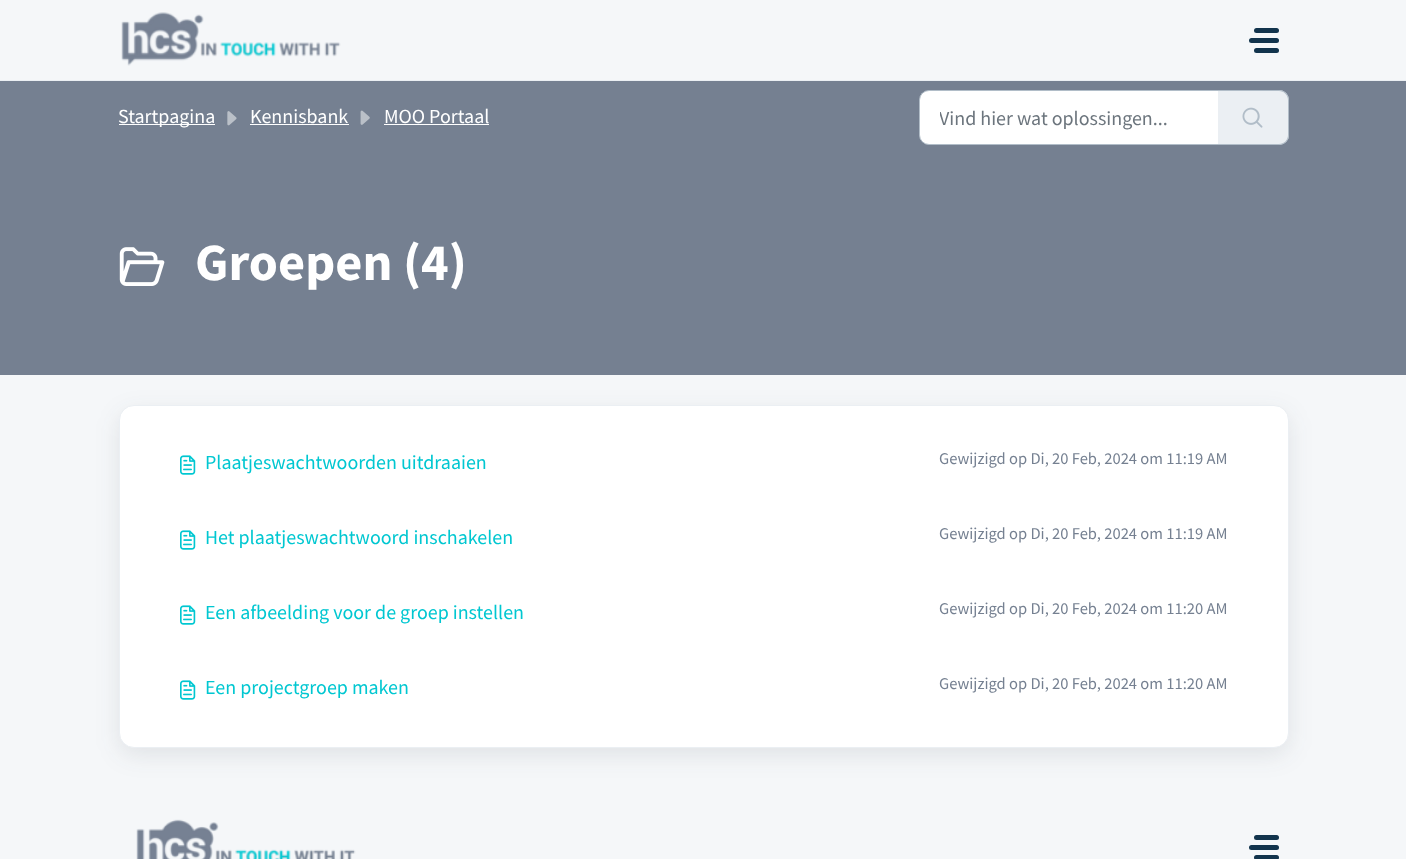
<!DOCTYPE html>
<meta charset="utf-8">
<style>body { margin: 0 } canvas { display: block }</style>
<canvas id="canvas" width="1406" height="859"></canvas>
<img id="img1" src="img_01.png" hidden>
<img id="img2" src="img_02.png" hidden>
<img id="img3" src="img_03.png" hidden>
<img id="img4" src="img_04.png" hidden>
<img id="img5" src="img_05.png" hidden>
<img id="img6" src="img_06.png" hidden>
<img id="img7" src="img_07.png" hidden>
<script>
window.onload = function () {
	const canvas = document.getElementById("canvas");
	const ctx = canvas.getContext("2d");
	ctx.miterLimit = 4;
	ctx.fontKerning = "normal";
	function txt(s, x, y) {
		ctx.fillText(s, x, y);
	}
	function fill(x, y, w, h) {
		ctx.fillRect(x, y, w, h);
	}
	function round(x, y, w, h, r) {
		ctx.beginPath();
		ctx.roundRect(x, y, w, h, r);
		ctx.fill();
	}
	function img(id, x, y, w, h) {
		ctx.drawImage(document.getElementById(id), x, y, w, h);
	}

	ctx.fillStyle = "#F5F7F9";
	fill(0, 0, 1406, 859);
	ctx.fillStyle = "#EBEFF3";
	fill(0, 80, 1406, 1);
	img("img1", 121, 12, 220, 54);
	ctx.fillStyle = "#12344D";
	round(1254, 28, 25, 5, 2.5);
	round(1249, 38, 30, 5, 2.5);
	round(1254, 48, 25, 5, 2.5);
	ctx.fillStyle = "#758091";
	fill(0, 81, 1406, 294);
	ctx.fillStyle = "#FFFFFF";
	fill(119, 124, 96, 1);
	img("img2", 227, 111, 10, 15);
	fill(250, 124, 99, 1);
	img("img3", 360, 110, 10, 15);
	fill(384, 124, 105, 1);
	ctx.beginPath();
	ctx.roundRect(919.5, 90.5, 299, 54, [9.5, 0, 0, 9.5]);
	ctx.fill();
	ctx.strokeStyle = "#B1BDC8";
	ctx.stroke();
	ctx.fillStyle = "#EBEFF3";
	ctx.beginPath();
	ctx.roundRect(1218, 90, 71, 55, [0, 10, 10, 0]);
	ctx.fill();
	ctx.fillStyle = "#B1BDC8";
	ctx.beginPath();
	ctx.moveTo(1218, 90);
	ctx.lineTo(1279, 90);
	ctx.bezierCurveTo(1284, 90, 1289, 94, 1289, 100);
	ctx.lineTo(1289, 135);
	ctx.bezierCurveTo(1289, 141, 1284, 145, 1279, 145);
	ctx.lineTo(1218, 145);
	ctx.closePath();
	ctx.moveTo(1218, 91);
	ctx.lineTo(1279, 91);
	ctx.bezierCurveTo(1284, 91, 1288, 95, 1288, 100);
	ctx.lineTo(1288, 135);
	ctx.bezierCurveTo(1288, 140, 1284, 144, 1279, 144);
	ctx.lineTo(1218, 144);
	ctx.closePath();
	ctx.fill("evenodd");
	img("img4", 1242, 107, 21, 21);
	img("img5", 119, 247, 46, 39);
	ctx.fillStyle = "rgba(39, 49, 58, 0.1)";
	ctx.filter = "blur(12px)";
	ctx.beginPath();
	ctx.roundRect(119, 413, 1170, 342, 15);
	ctx.fill();
	ctx.filter = "none";
	ctx.fillStyle = "#FFFFFF";
	ctx.beginPath();
	ctx.roundRect(119.5, 405.5, 1169, 342, 14.5);
	ctx.fill();
	ctx.strokeStyle = "#EBEFF3";
	ctx.stroke();
	img("img6", 180, 455, 16, 20);
	img("img6", 180, 530, 16, 20);
	img("img6", 180, 605, 16, 20);
	img("img6", 180, 680, 16, 20);
	img("img7", 136, 819, 220, 40);
	ctx.fillStyle = "#12344D";
	round(1254, 835, 25, 5, 2.5);
	round(1249, 845, 30, 5, 2.5);
	round(1254, 855, 25, 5, 2.5);
	ctx.font = "20px Source Sans Pro";
	ctx.fillStyle = "#FFFFFF";
	txt("Startpagina", 118, 123);
	txt("Kennisbank", 250, 123);
	txt("MOO Portaal", 384, 123);
	ctx.save();
	ctx.beginPath();
	ctx.rect(940, 105, 258, 25);
	ctx.clip();
	ctx.fillStyle = "#6C757D";
	txt("Vind hier wat oplossingen...", 939, 125);
	ctx.restore();
	ctx.font = "bold 52.5px Source Sans Pro";
	txt("Groepen (4)", 195, 280);
	ctx.font = "20px Source Sans Pro";
	ctx.fillStyle = "#00C7D1";
	txt("Plaatjeswachtwoorden uitdraaien", 205, 469);
	ctx.font = "16.5px Source Sans Pro";
	ctx.fillStyle = "#758091";
	txt("Gewijzigd op Di, 20 Feb, 2024 om 11:19 AM", 939, 464);
	ctx.font = "20px Source Sans Pro";
	ctx.fillStyle = "#00C7D1";
	txt("Het plaatjeswachtwoord inschakelen", 205, 544);
	ctx.font = "16.5px Source Sans Pro";
	ctx.fillStyle = "#758091";
	txt("Gewijzigd op Di, 20 Feb, 2024 om 11:19 AM", 939, 539);
	ctx.font = "20px Source Sans Pro";
	ctx.fillStyle = "#00C7D1";
	txt("Een afbeelding voor de groep instellen", 205, 619);
	ctx.font = "16.5px Source Sans Pro";
	ctx.fillStyle = "#758091";
	txt("Gewijzigd op Di, 20 Feb, 2024 om 11:20 AM", 939, 614);
	ctx.font = "20px Source Sans Pro";
	ctx.fillStyle = "#00C7D1";
	txt("Een projectgroep maken", 205, 694);
	ctx.font = "16.5px Source Sans Pro";
	ctx.fillStyle = "#758091";
	txt("Gewijzigd op Di, 20 Feb, 2024 om 11:20 AM", 939, 689);
};
</script>
